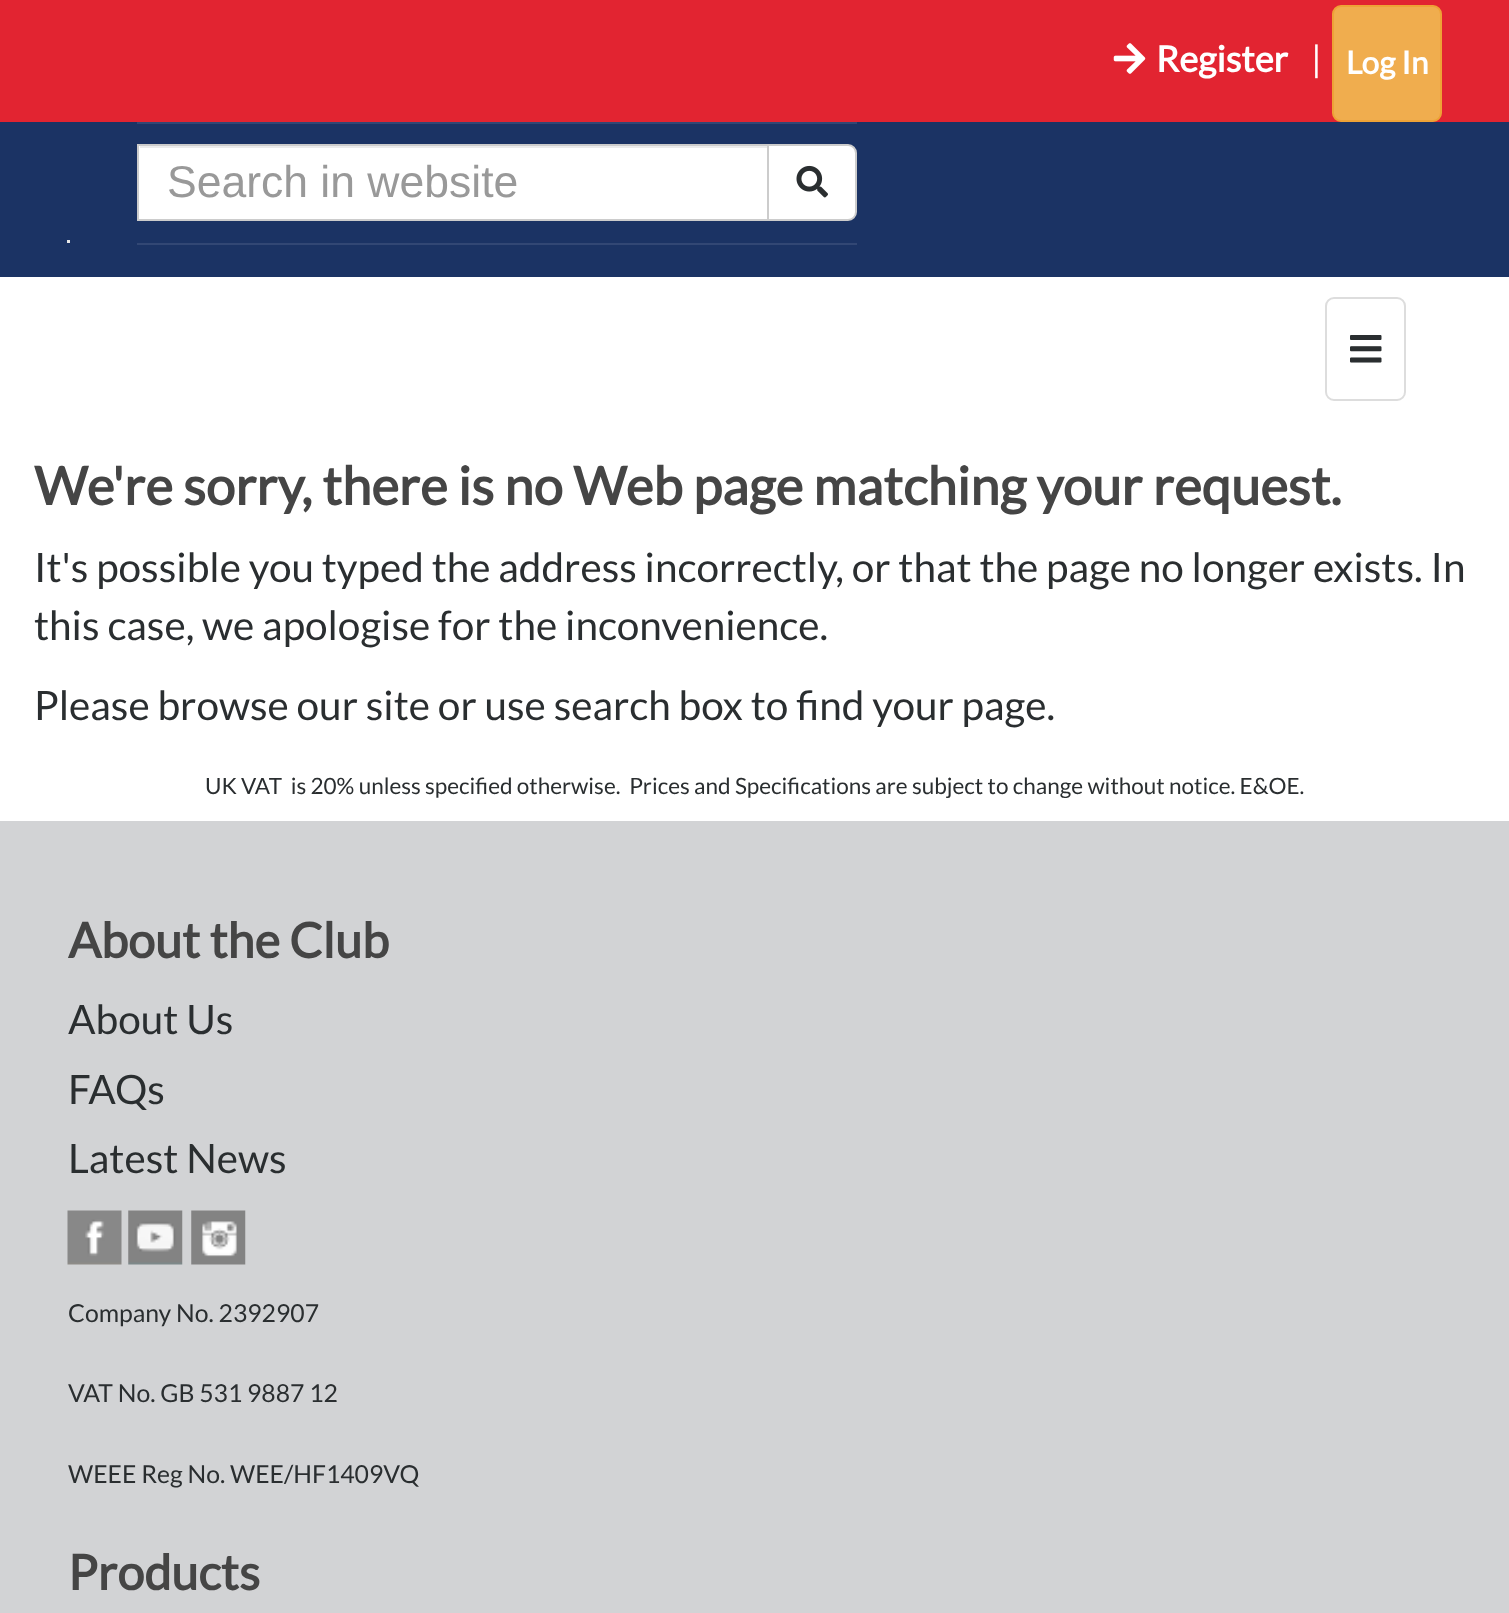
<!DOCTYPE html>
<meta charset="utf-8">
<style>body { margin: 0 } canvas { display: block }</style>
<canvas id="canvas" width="1509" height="1613"></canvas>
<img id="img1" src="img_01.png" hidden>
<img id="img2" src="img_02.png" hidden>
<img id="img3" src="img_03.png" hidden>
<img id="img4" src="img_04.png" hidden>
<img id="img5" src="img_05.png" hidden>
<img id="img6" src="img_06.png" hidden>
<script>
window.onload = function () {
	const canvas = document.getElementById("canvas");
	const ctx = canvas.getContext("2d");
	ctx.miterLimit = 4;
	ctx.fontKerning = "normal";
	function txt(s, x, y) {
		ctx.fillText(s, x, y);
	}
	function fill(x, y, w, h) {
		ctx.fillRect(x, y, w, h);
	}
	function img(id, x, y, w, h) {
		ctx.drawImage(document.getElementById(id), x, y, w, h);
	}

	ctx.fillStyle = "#FFFFFF";
	fill(0, 0, 1509, 1613);
	ctx.fillStyle = "#E22431";
	fill(0, 0, 1509, 122);
	img("img1", 1113, 43, 33, 31);
	ctx.fillStyle = "#F0AD4E";
	ctx.beginPath();
	ctx.roundRect(1333, 6, 108, 115, 8);
	ctx.fill();
	ctx.strokeStyle = "#EEA236";
	ctx.lineWidth = 2;
	ctx.stroke();
	ctx.fillStyle = "#1B3364";
	fill(0, 122, 1509, 155);
	ctx.fillStyle = "#324774";
	ctx.beginPath();
	ctx.moveTo(137, 124);
	ctx.lineTo(137, 245);
	ctx.lineTo(857, 245);
	ctx.lineTo(857, 243);
	ctx.lineTo(137, 243);
	ctx.closePath();
	ctx.fill();
	fill(137, 122, 720, 2);
	ctx.fillStyle = "#FFFFFF";
	fill(139, 146, 628, 73);
	ctx.fillStyle = "#ECECEC";
	fill(140, 146, 627, 2);
	ctx.strokeStyle = "#CCCCCC";
	ctx.strokeRect(138, 145, 631, 75);
	ctx.fillStyle = "#FFFFFF";
	ctx.beginPath();
	ctx.roundRect(768, 145, 88, 75, [0, 8, 8, 0]);
	ctx.fill();
	ctx.stroke();
	img("img2", 796, 165, 32, 33);
	ctx.fillStyle = "#E7E7E7";
	fill(67, 240, 3, 3);
	ctx.beginPath();
	ctx.roundRect(1326, 298, 79, 102, 8);
	ctx.strokeStyle = "#DDDDDD";
	ctx.stroke();
	img("img3", 1350, 335, 32, 28);
	ctx.fillStyle = "#D2D3D5";
	fill(0, 821, 1509, 792);
	img("img4", 67, 1210, 55, 55);
	img("img5", 128, 1210, 55, 55);
	img("img6", 191, 1210, 55, 55);
	ctx.font = "bold 36px Lato";
	ctx.fillStyle = "#FFFFFF";
	txt("Register", 1156, 72);
	ctx.font = "36px Lato";
	txt("|", 1311, 72);
	ctx.font = "bold 31.5px Lato";
	txt("Log In", 1346, 74);
	ctx.font = "44.5px Liberation Sans";
	ctx.fillStyle = "#999999";
	txt("Search in website", 167, 197);
	ctx.font = "bold 52.65px Lato";
	ctx.fillStyle = "#454545";
	txt("We're sorry, there is no Web page matching your request.", 34, 505);
	ctx.font = "40.5px Lato";
	ctx.fillStyle = "#2A2E30";
	txt("It's possible you typed the address incorrectly, or that the page no longer exists. In", 34, 582);
	txt("this case, we apologise for the inconvenience.", 34, 640);
	txt("Please browse our site or use search box to find your page.", 34, 720);
	ctx.font = "22.5px Lato";
	txt("UK VAT  is 20% unless specified otherwise.  Prices and Specifications are subject to change without notice. E&OE.", 205, 794);
	ctx.font = "bold 48.5px Lato";
	ctx.fillStyle = "#454545";
	txt("About the Club", 68, 958);
	ctx.font = "40.5px Lato";
	ctx.fillStyle = "#2A2E30";
	txt("About Us", 68, 1034);
	txt("FAQs", 68, 1104);
	txt("Latest News", 68, 1173);
	ctx.font = "24.75px Lato";
	txt("Company No. 2392907", 68, 1322);
	txt("VAT No. GB 531 9887 12", 68, 1402);
	txt("WEEE Reg No. WEE/HF1409VQ", 68, 1483);
	ctx.font = "bold 48.5px Lato";
	ctx.fillStyle = "#454545";
	txt("Products", 68, 1590);
};
</script>
